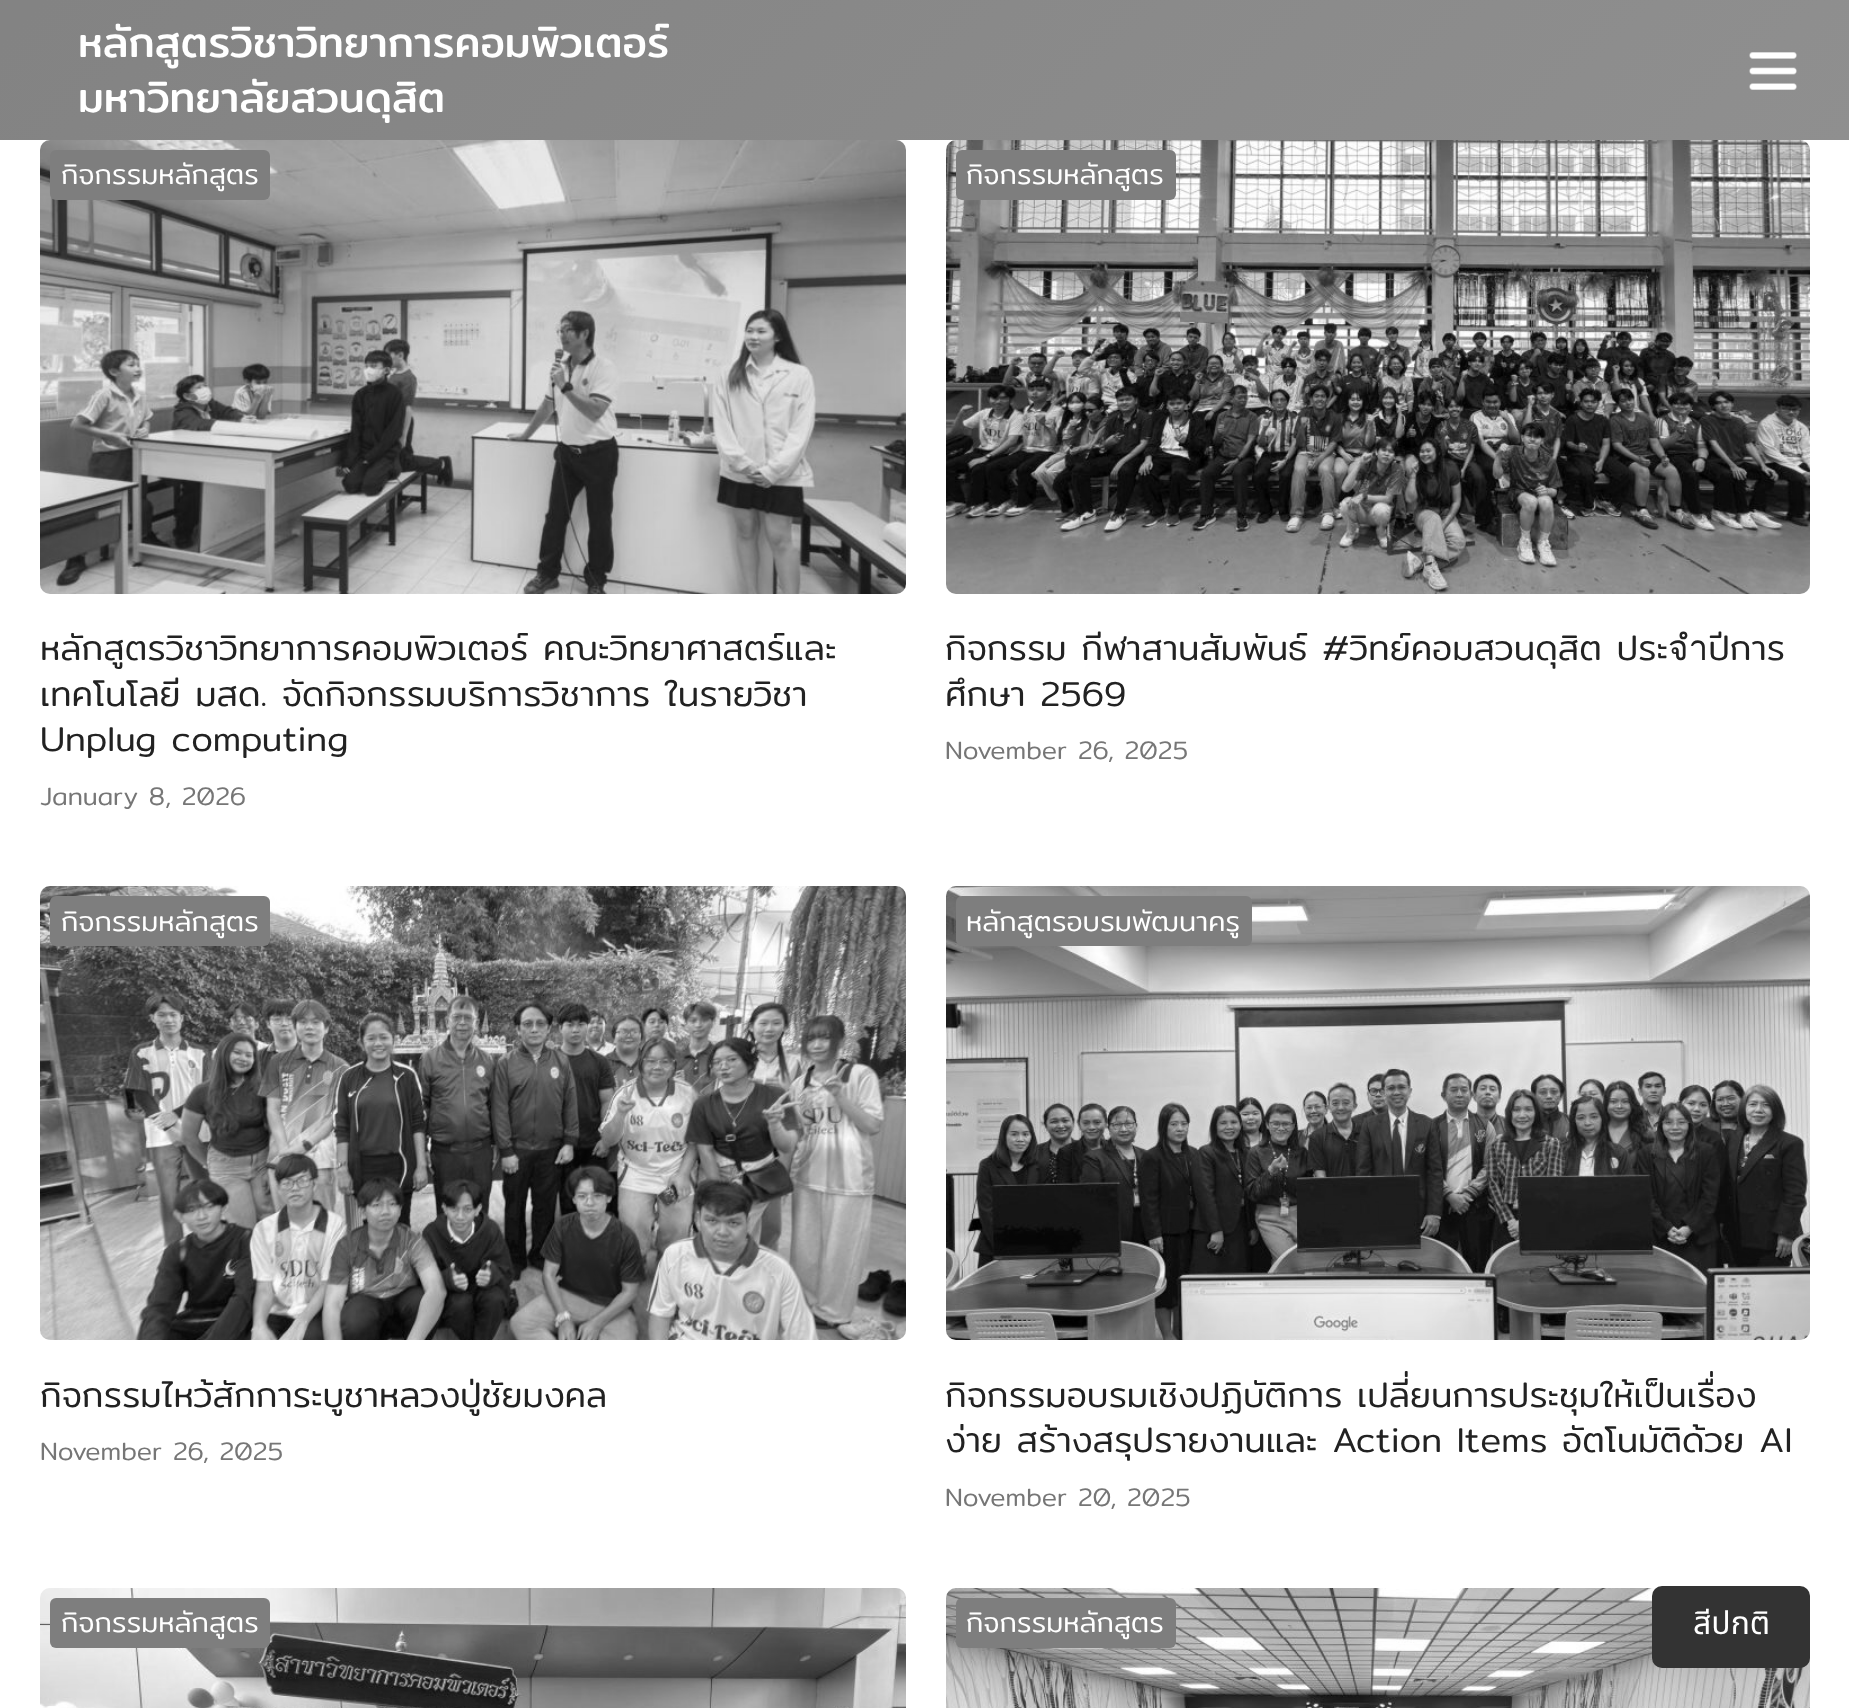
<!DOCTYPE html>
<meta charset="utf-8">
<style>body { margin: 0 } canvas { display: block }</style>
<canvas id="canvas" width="1849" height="1708"></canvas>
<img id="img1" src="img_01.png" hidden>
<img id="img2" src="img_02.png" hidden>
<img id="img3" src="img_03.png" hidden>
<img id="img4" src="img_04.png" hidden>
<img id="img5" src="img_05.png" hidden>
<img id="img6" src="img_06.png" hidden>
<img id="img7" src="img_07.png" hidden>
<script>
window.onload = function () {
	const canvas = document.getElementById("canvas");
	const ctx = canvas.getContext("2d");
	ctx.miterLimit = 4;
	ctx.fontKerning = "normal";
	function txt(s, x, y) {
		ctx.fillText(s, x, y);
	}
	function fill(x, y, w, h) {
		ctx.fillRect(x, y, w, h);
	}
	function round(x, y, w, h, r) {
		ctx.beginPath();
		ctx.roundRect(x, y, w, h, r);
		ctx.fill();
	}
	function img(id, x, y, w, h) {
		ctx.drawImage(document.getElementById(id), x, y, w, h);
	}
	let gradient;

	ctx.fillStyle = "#FFFFFF";
	fill(0, 0, 1849, 1708);
	gradient = ctx.createLinearGradient(427, -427, 1423, 568);
	gradient.addColorStop(0.02, "#838383");
	gradient.addColorStop(1, "#8F8F8F");
	ctx.fillStyle = gradient;
	fill(0, 0, 1849, 140);
	img("img1", 1749, 52, 48, 38);
	ctx.fillStyle = "#F5F5F5";
	round(40, 140, 866, 454, 10);
	img("img2", 40, 140, 866, 454);
	ctx.fillStyle = "#7E7E7E";
	round(50, 150, 220, 50, 6);
	ctx.fillStyle = "#F5F5F5";
	round(946, 140, 864, 454, 10);
	img("img3", 946, 140, 864, 454);
	ctx.fillStyle = "#7E7E7E";
	round(956, 150, 220, 50, 6);
	ctx.fillStyle = "#F5F5F5";
	round(40, 886, 866, 454, 10);
	img("img4", 40, 886, 866, 454);
	ctx.fillStyle = "#7E7E7E";
	round(50, 896, 220, 50, 6);
	ctx.fillStyle = "#F5F5F5";
	round(946, 886, 864, 454, 10);
	img("img5", 946, 886, 864, 454);
	ctx.fillStyle = "#7E7E7E";
	round(956, 896, 296, 50, 6);
	ctx.fillStyle = "#F5F5F5";
	round(40, 1588, 866, 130, 10);
	img("img6", 40, 1588, 866, 120);
	ctx.fillStyle = "#7E7E7E";
	round(50, 1598, 220, 50, 6);
	ctx.fillStyle = "#F5F5F5";
	round(946, 1588, 864, 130, 10);
	img("img7", 946, 1588, 864, 120);
	ctx.fillStyle = "#7E7E7E";
	round(956, 1598, 220, 50, 6);
	ctx.fillStyle = "#333333";
	round(1652, 1586, 158, 82, 10);
	ctx.font = "42px Mitr";
	ctx.fillStyle = "#FFFFFF";
	txt("หลักสูตรวิชาวิทยาการคอมพิวเตอร์", 78, 57);
	txt("มหาวิทยาลัยสวนดุสิต", 78, 112);
	ctx.font = "300 28px Mitr";
	txt("กิจกรรมหลักสูตร", 61, 184);
	ctx.font = "300 35px Mitr";
	ctx.fillStyle = "#222222";
	txt("หลักสูตรวิชาวิทยาการคอมพิวเตอร์ คณะวิทยาศาสตร์และ", 40, 660);
	txt("เทคโนโลยี มสด. จัดกิจกรรมบริการวิชาการ ในรายวิชา", 40, 706);
	txt("Unplug computing", 40, 751);
	ctx.font = "300 25.5px Mitr";
	ctx.fillStyle = "#767676";
	txt("January 8, 2026", 40, 805);
	ctx.font = "300 28px Mitr";
	ctx.fillStyle = "#FFFFFF";
	txt("กิจกรรมหลักสูตร", 966, 184);
	ctx.font = "300 35px Mitr";
	ctx.fillStyle = "#222222";
	txt("กิจกรรม กีฬาสานสัมพันธ์ #วิทย์คอมสวนดุสิต ประจำปีการ", 945, 660);
	txt("ศึกษา 2569", 945, 706);
	ctx.font = "300 25.5px Mitr";
	ctx.fillStyle = "#767676";
	txt("November 26, 2025", 945, 759);
	ctx.font = "300 28px Mitr";
	ctx.fillStyle = "#FFFFFF";
	txt("กิจกรรมหลักสูตร", 61, 931);
	ctx.font = "300 35px Mitr";
	ctx.fillStyle = "#222222";
	txt("กิจกรรมไหว้สักการะบูชาหลวงปู่ชัยมงคล", 40, 1407);
	ctx.font = "300 25.5px Mitr";
	ctx.fillStyle = "#767676";
	txt("November 26, 2025", 40, 1460);
	ctx.font = "300 28px Mitr";
	ctx.fillStyle = "#FFFFFF";
	txt("หลักสูตรอบรมพัฒนาครู", 966, 931);
	ctx.font = "300 35px Mitr";
	ctx.fillStyle = "#222222";
	txt("กิจกรรมอบรมเชิงปฏิบัติการ เปลี่ยนการประชุมให้เป็นเรื่อง", 945, 1407);
	txt("ง่าย สร้างสรุปรายงานและ Action Items อัตโนมัติด้วย AI", 945, 1452);
	ctx.font = "300 25.5px Mitr";
	ctx.fillStyle = "#767676";
	txt("November 20, 2025", 945, 1506);
	ctx.font = "300 28px Mitr";
	ctx.fillStyle = "#FFFFFF";
	txt("กิจกรรมหลักสูตร", 61, 1632);
	txt("กิจกรรมหลักสูตร", 966, 1632);
	ctx.font = "32px Noto Sans Thai";
	txt("สีปกติ", 1693, 1634);
};
</script>
